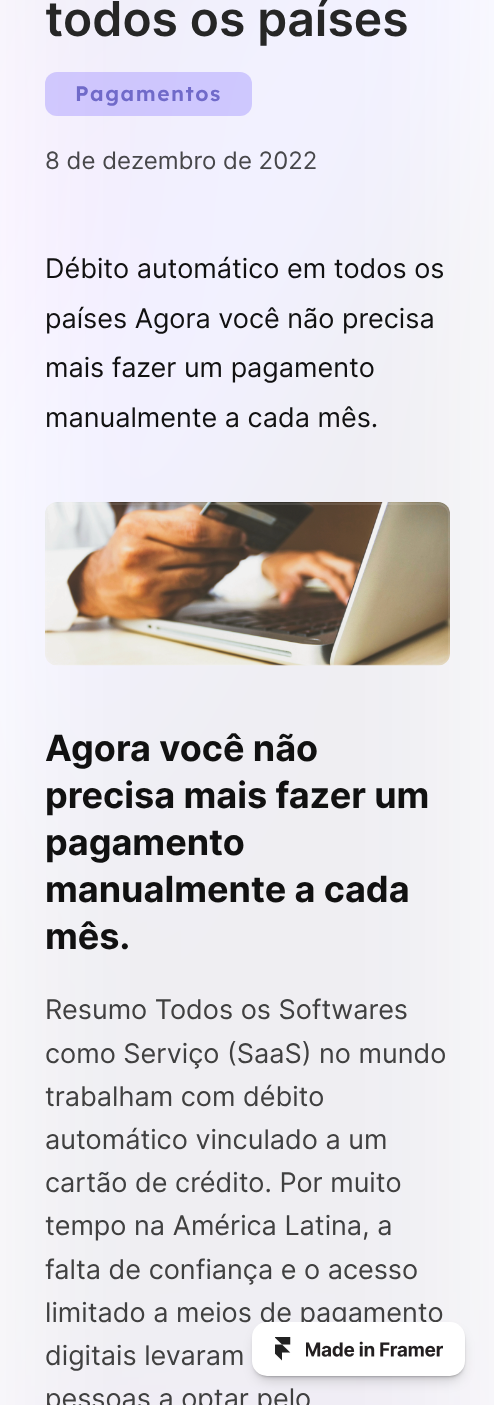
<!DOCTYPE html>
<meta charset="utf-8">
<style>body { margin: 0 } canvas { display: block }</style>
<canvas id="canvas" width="494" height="1405"></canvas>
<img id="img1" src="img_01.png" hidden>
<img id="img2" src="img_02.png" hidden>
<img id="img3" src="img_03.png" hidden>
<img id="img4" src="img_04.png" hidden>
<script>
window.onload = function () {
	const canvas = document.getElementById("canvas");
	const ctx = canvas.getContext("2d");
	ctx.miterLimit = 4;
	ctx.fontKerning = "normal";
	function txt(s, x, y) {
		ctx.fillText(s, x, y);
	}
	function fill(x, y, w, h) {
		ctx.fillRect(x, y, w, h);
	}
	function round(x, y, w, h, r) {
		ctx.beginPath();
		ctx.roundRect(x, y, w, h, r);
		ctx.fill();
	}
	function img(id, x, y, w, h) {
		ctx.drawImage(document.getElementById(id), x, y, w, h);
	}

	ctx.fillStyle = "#FFFFFF";
	fill(0, 0, 494, 1405);
	img("img1", 0, 0, 494, 1405);
	ctx.fillStyle = "rgba(140, 122, 255, 0.35)";
	round(45, 72, 207, 44, 12);
	img("img2", 45, 502, 405, 164);
	ctx.beginPath();
	ctx.roundRect(46, 504, 403, 161, 11);
	ctx.strokeStyle = "rgba(255, 255, 255, 0.1)";
	ctx.lineWidth = 2;
	ctx.stroke();
	ctx.fillStyle = "rgba(0, 0, 0, 0.19)";
	ctx.filter = "blur(7px)";
	ctx.beginPath();
	ctx.roundRect(257, 1334, 204, 45, 11);
	ctx.fill();
	ctx.filter = "none";
	ctx.fillStyle = "rgba(0, 0, 0, 0.24)";
	ctx.filter = "blur(2.5px)";
	ctx.beginPath();
	ctx.roundRect(255, 1328, 207, 48, 12);
	ctx.fill();
	ctx.filter = "none";
	ctx.fillStyle = "rgba(0, 0, 0, 0.26)";
	ctx.filter = "blur(1px)";
	ctx.beginPath();
	ctx.roundRect(254, 1325, 210, 51, 14);
	ctx.fill();
	ctx.filter = "none";
	ctx.font = "600 48px Inter";
	ctx.fillStyle = "#262626";
	txt("todos os países", 45, 36);
	ctx.letterSpacing = "1.5px";
	ctx.font = "600 21px Lexend";
	ctx.fillStyle = "#706AC9";
	txt("Pagamentos", 75, 101);
	ctx.letterSpacing = "0px";
	ctx.font = "24px Inter";
	ctx.fillStyle = "#47474A";
	txt("8 de dezembro de 2022", 45, 169);
	ctx.font = "27px Inter";
	ctx.fillStyle = "#111111";
	txt("Débito automático em todos os", 45, 278);
	txt("países Agora você não precisa", 45, 328);
	txt("mais fazer um pagamento", 45, 377);
	txt("manualmente a cada mês.", 45, 427);
	ctx.font = "bold 36px Inter";
	txt("Agora você não", 45, 761);
	txt("precisa mais fazer um", 45, 808);
	txt("pagamento", 45, 855);
	txt("manualmente a cada", 45, 902);
	txt("mês.", 45, 949);
	ctx.font = "27px Inter";
	ctx.fillStyle = "#404040";
	txt("Resumo Todos os Softwares", 45, 1019);
	txt("como Serviço (SaaS) no mundo", 45, 1063);
	txt("trabalham com débito", 45, 1106);
	txt("automático vinculado a um", 45, 1149);
	txt("cartão de crédito. Por muito", 45, 1192);
	txt("tempo na América Latina, a", 45, 1235);
	txt("falta de confiança e o acesso", 45, 1279);
	txt("limitado a meios de pagamento", 45, 1322);
	txt("digitais levaram", 45, 1365);
	txt("pessoas a optar pelo", 45, 1408);
	ctx.fillStyle = "#FFFFFF";
	round(252, 1322, 213, 54, 15);
	img("img3", 275, 1337, 16, 24);
	img("img4", 306, 1341, 137, 16);
};
</script>
